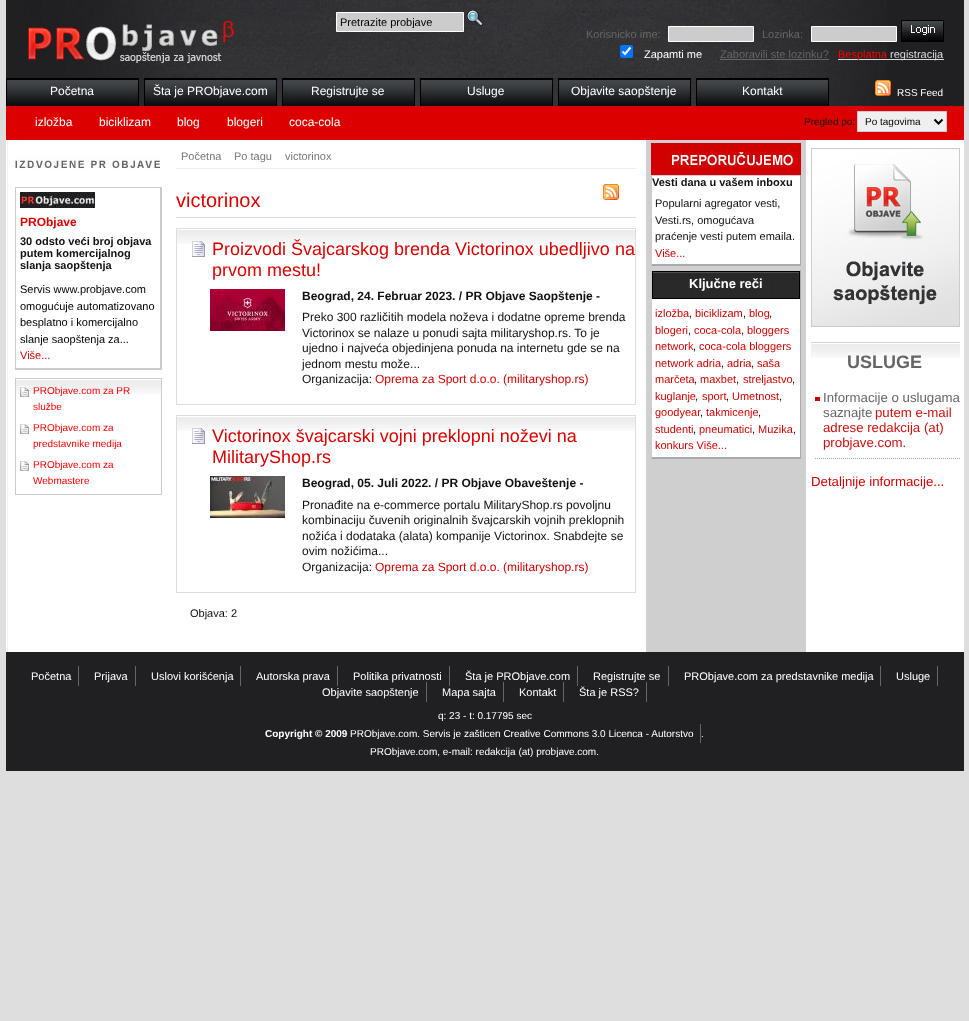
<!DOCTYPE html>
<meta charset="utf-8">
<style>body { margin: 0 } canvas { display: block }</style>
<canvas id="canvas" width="969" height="1021"></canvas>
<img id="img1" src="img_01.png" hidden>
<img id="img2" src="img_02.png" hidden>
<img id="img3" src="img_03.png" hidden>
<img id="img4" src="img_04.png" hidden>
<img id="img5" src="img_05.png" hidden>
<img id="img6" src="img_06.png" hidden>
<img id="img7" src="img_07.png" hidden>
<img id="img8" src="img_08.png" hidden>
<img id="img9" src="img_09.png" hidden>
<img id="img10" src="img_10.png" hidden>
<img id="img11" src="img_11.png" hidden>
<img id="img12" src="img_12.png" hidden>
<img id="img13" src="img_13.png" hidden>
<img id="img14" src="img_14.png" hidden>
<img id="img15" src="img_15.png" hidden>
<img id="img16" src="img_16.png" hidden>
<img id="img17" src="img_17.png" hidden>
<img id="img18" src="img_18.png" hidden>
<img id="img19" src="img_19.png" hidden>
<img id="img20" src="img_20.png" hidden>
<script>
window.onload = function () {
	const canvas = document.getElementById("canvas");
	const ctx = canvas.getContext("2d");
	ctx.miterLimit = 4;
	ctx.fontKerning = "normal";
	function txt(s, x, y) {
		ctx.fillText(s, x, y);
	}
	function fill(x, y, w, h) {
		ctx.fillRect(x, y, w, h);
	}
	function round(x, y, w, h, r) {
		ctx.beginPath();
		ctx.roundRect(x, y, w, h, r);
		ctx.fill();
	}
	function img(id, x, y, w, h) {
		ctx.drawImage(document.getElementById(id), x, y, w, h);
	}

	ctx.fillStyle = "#DEDEDE";
	fill(0, 0, 969, 1021);
	ctx.fillStyle = "#FFFFFF";
	fill(6, 140, 958, 512);
	img("img1", 7, 140, 799, 512);
	ctx.fillStyle = "#202022";
	fill(6, 0, 958, 106);
	img("img2", 22, 0, 865, 106);
	ctx.fillStyle = "#CCCCCC";
	ctx.beginPath();
	ctx.rect(336.5, 12.5, 127, 19);
	ctx.fill();
	ctx.strokeStyle = "#FFFFFF";
	ctx.stroke();
	img("img3", 467, 10, 16, 16);
	img("img4", 6, 79, 133, 27);
	ctx.fillStyle = "#000000";
	fill(6, 78, 133, 1);
	img("img4", 144, 79, 133, 27);
	fill(144, 78, 133, 1);
	img("img4", 282, 79, 133, 27);
	fill(282, 78, 133, 1);
	img("img4", 420, 79, 133, 27);
	fill(420, 78, 133, 1);
	img("img4", 558, 79, 133, 27);
	fill(558, 78, 133, 1);
	img("img4", 696, 79, 133, 27);
	fill(696, 78, 133, 1);
	ctx.fillStyle = "#DD0000";
	fill(6, 106, 958, 34);
	ctx.fillStyle = "#EFEFEF";
	ctx.beginPath();
	ctx.rect(857.5, 111.5, 89, 20);
	ctx.fill();
	ctx.strokeStyle = "#CCCCCC";
	ctx.stroke();
	ctx.beginPath();
	ctx.moveTo(934.5, 119.5);
	ctx.lineTo(938.5, 123.5);
	ctx.lineTo(942.5, 119.5);
	ctx.strokeStyle = "#000000";
	ctx.lineWidth = 2;
	ctx.stroke();
	ctx.fillStyle = "#CCCCCC";
	ctx.beginPath();
	ctx.rect(668.5, 26.5, 85, 15);
	ctx.fill();
	ctx.strokeStyle = "#FFFFFF";
	ctx.lineWidth = 1;
	ctx.stroke();
	ctx.beginPath();
	ctx.rect(811.5, 26.5, 85, 15);
	ctx.fill();
	ctx.stroke();
	img("img5", 901, 20, 43, 22);
	ctx.fillStyle = "#0075FF";
	round(620, 45, 13, 13, 2);
	ctx.beginPath();
	ctx.moveTo(622.5, 51.5);
	ctx.lineTo(625, 54);
	ctx.lineTo(630.5, 47.5);
	ctx.lineWidth = 2.1;
	ctx.stroke();
	ctx.fillStyle = "#666666";
	fill(720, 59, 109, 1);
	ctx.fillStyle = "#DDDDDD";
	fill(838, 59, 49, 1);
	img("img6", 875, 80, 16, 16);
	img("img7", 15, 155, 145, 15);
	ctx.fillStyle = "#CCCCCC";
	fill(15, 187, 147, 1);
	fill(160, 187, 2, 183);
	fill(15, 368, 147, 2);
	fill(15, 187, 1, 183);
	img("img8", 20, 192, 75, 16);
	img("img9", 16, 380, 145, 14);
	ctx.strokeStyle = "#CCCCCC";
	ctx.lineWidth = 1;
	ctx.strokeRect(15.5, 378.5, 146, 116);
	img("img10", 20, 386, 9, 11);
	img("img11", 20, 424, 9, 10);
	img("img11", 20, 461, 9, 10);
	ctx.fillStyle = "#EEEEEE";
	fill(176, 168, 460, 1);
	ctx.fillStyle = "#DEDEDE";
	fill(176, 217, 460, 1);
	img("img12", 603, 184, 16, 16);
	img("img13", 177, 230, 458, 14);
	ctx.strokeStyle = "#DEDEDE";
	ctx.strokeRect(176.5, 228.5, 459, 176);
	img("img14", 192, 241, 13, 16);
	img("img15", 210, 289, 75, 42);
	img("img13", 177, 417, 458, 14);
	ctx.strokeRect(176.5, 415.5, 459, 177);
	img("img14", 192, 428, 13, 16);
	img("img16", 210, 476, 75, 42);
	img("img17", 651, 143, 150, 32);
	ctx.fillStyle = "#FFFFFF";
	fill(652, 176, 148, 88);
	ctx.fillStyle = "#CCCCCC";
	fill(651, 175, 150, 1);
	ctx.fillStyle = "#AAAAAA";
	fill(800, 175, 1, 91);
	ctx.beginPath();
	ctx.moveTo(801, 266);
	ctx.lineTo(651, 266);
	ctx.lineTo(652, 264);
	ctx.lineTo(800, 264);
	ctx.closePath();
	ctx.fill();
	ctx.fillStyle = "#CCCCCC";
	ctx.beginPath();
	ctx.moveTo(651, 266);
	ctx.lineTo(651, 175);
	ctx.lineTo(652, 176);
	ctx.lineTo(652, 264);
	ctx.closePath();
	ctx.fill();
	ctx.fillStyle = "#FFFFFF";
	fill(652, 299, 148, 158);
	ctx.fillStyle = "#CCCCCC";
	fill(651, 270, 150, 1);
	ctx.fillStyle = "#AAAAAA";
	fill(800, 270, 1, 189);
	ctx.beginPath();
	ctx.moveTo(801, 459);
	ctx.lineTo(651, 459);
	ctx.lineTo(652, 457);
	ctx.lineTo(800, 457);
	ctx.closePath();
	ctx.fill();
	ctx.fillStyle = "#CCCCCC";
	ctx.beginPath();
	ctx.moveTo(651, 459);
	ctx.lineTo(651, 270);
	ctx.lineTo(652, 271);
	ctx.lineTo(652, 457);
	ctx.closePath();
	ctx.fill();
	img("img18", 653, 272, 146, 26);
	ctx.strokeStyle = "#000000";
	ctx.strokeRect(652.5, 271.5, 147, 27);
	ctx.strokeStyle = "#CCCCCC";
	ctx.strokeRect(811.5, 148.5, 148, 178);
	img("img19", 812, 149, 147, 177);
	img("img20", 811, 344, 149, 14);
	ctx.fillStyle = "#D2D2D2";
	fill(811, 342, 149, 1);
	ctx.fillStyle = "#D00000";
	fill(815, 397, 5, 4);
	ctx.beginPath();
	ctx.moveTo(815, 458.5);
	ctx.lineTo(960, 458.5);
	ctx.strokeStyle = "#A4A4A4";
	ctx.setLineDash([1, 1]);
	ctx.stroke();
	ctx.fillStyle = "#202022";
	fill(6, 652, 958, 119);
	ctx.fillStyle = "#666666";
	fill(78, 666, 1, 20);
	fill(135, 666, 1, 20);
	fill(240, 666, 1, 20);
	fill(337, 666, 1, 20);
	fill(449, 666, 1, 20);
	fill(577, 666, 1, 20);
	fill(668, 666, 1, 20);
	fill(880, 666, 1, 20);
	fill(937, 666, 1, 20);
	fill(700, 724, 1, 19);
	ctx.save();
	ctx.beginPath();
	ctx.rect(340, 16, 120, 12);
	ctx.clip();
	ctx.font = "11px Liberation Sans";
	ctx.fillStyle = "#000000";
	txt("Pretrazite probjave", 340, 26);
	ctx.restore();
	ctx.font = "12px Liberation Sans";
	ctx.fillStyle = "#FFFFFF";
	txt("Početna", 50, 95);
	txt("Šta je PRObjave.com", 153, 95);
	txt("Registrujte se", 311, 95);
	txt("Usluge", 467, 95);
	txt("Objavite saopštenje", 571, 95);
	txt("Kontakt", 742, 95);
	txt("izložba", 35, 126);
	txt("biciklizam", 99, 126);
	txt("blog", 177, 126);
	txt("blogeri", 227, 126);
	txt("coca-cola", 289, 126);
	ctx.font = "10px Liberation Sans";
	ctx.fillStyle = "#111111";
	txt("Pregled po:", 804, 125);
	ctx.fillStyle = "#000000";
	txt("Po tagovima", 865, 125);
	ctx.font = "11px Liberation Sans";
	ctx.fillStyle = "#666666";
	txt("Korisnicko ime:", 586, 38);
	txt("Lozinka:", 762, 38);
	ctx.fillStyle = "#FFFFFF";
	txt("Zapamti me", 644, 58);
	ctx.fillStyle = "#666666";
	txt("Zaboravili ste lozinku?", 720, 58);
	ctx.fillStyle = "#FF0000";
	txt("Besplatna", 838, 58);
	ctx.fillStyle = "#DDDDDD";
	fill(887, 59, 57, 1);
	txt("registracija", 890, 58);
	ctx.font = "10px Liberation Sans";
	ctx.fillStyle = "#FFFFFF";
	txt("RSS Feed", 897, 96);
	ctx.font = "bold 12px Liberation Sans";
	ctx.fillStyle = "#DD0000";
	txt("PRObjave", 20, 226);
	ctx.font = "bold 11px Liberation Sans";
	ctx.fillStyle = "#111111";
	txt("30 odsto veći broj objava", 20, 245);
	txt("putem komercijalnog", 20, 257);
	txt("slanja saopštenja", 20, 269);
	ctx.font = "11px Liberation Sans";
	ctx.fillStyle = "#000000";
	txt("Servis www.probjave.com", 20, 293);
	txt("omogućuje automatizovano", 20, 310);
	txt("besplatno i komercijalno", 20, 326);
	txt("slanje saopštenja za...", 20, 343);
	ctx.fillStyle = "#D10000";
	txt("Više...", 20, 359);
	ctx.font = "10px Liberation Sans";
	ctx.fillStyle = "#FF0000";
	txt("PRObjave.com za PR", 33, 394);
	txt("službe", 33, 410);
	txt("PRObjave.com za", 33, 431);
	txt("predstavnike medija", 33, 447);
	txt("PRObjave.com za", 33, 468);
	txt("Webmastere", 33, 484);
	ctx.font = "11px Liberation Sans";
	ctx.fillStyle = "#777777";
	txt("Početna", 181, 160);
	txt("Po tagu", 234, 160);
	txt("victorinox", 285, 160);
	ctx.font = "20px Liberation Sans";
	ctx.fillStyle = "#DD0000";
	txt("victorinox", 176, 207);
	ctx.font = "18px Liberation Sans";
	txt("Proizvodi Švajcarskog brenda Victorinox ubedljivo na", 212, 255);
	txt("prvom mestu!", 212, 276);
	ctx.font = "bold 12px Liberation Sans";
	ctx.fillStyle = "#111111";
	txt("Beograd, 24. Februar 2023. / PR Objave Saopštenje -", 302, 300);
	ctx.font = "12px Liberation Sans";
	txt("Preko 300 različitih modela noževa i dodatne opreme brenda", 302, 321);
	txt("Victorinox se nalaze u ponudi sajta militaryshop.rs. To je", 302, 337);
	txt("ujedno i najveća objedinjena ponuda na internetu gde se na", 302, 352);
	txt("jednom mestu može...", 302, 368);
	txt("Organizacija:", 302, 383);
	ctx.fillStyle = "#D10000";
	txt("Oprema za Sport d.o.o. (militaryshop.rs)", 375, 383);
	ctx.font = "18px Liberation Sans";
	ctx.fillStyle = "#DD0000";
	txt("Victorinox švajcarski vojni preklopni noževi na", 212, 442);
	txt("MilitaryShop.rs", 212, 463);
	ctx.font = "bold 12px Liberation Sans";
	ctx.fillStyle = "#111111";
	txt("Beograd, 05. Juli 2022. / PR Objave Obaveštenje -", 302, 487);
	ctx.font = "12px Liberation Sans";
	txt("Pronađite na e-commerce portalu MilitaryShop.rs povoljnu", 302, 509);
	txt("kombinaciju čuvenih originalnih švajcarskih vojnih preklopnih", 302, 524);
	txt("nožića i dodataka (alata) kompanije Victorinox. Snabdejte se", 302, 540);
	txt("ovim nožićima...", 302, 555);
	txt("Organizacija:", 302, 571);
	ctx.fillStyle = "#D10000";
	txt("Oprema za Sport d.o.o. (militaryshop.rs)", 375, 571);
	ctx.font = "11px Liberation Sans";
	ctx.fillStyle = "#111111";
	txt("Objava: 2", 190, 617);
	ctx.font = "bold 11px Liberation Sans";
	txt("Vesti dana u vašem inboxu", 652, 186);
	ctx.font = "11px Liberation Sans";
	txt("Popularni agregator vesti,", 655, 207);
	txt("Vesti.rs, omogućava", 655, 224);
	txt("praćenje vesti putem emaila.", 655, 240);
	ctx.fillStyle = "#D10000";
	txt("Više...", 655, 257);
	ctx.font = "bold 13px Liberation Sans";
	ctx.fillStyle = "#FFFFFF";
	txt("Ključne reči", 689, 288);
	ctx.font = "11px Liberation Sans";
	ctx.fillStyle = "#D10000";
	txt("izložba", 655, 317);
	ctx.fillStyle = "#111111";
	txt(",", 689, 317);
	ctx.fillStyle = "#D10000";
	txt("biciklizam", 695, 317);
	ctx.fillStyle = "#111111";
	txt(",", 743, 317);
	ctx.fillStyle = "#D10000";
	txt("blog", 749, 317);
	ctx.fillStyle = "#111111";
	txt(",", 769, 317);
	ctx.fillStyle = "#D10000";
	txt("blogeri", 655, 334);
	ctx.fillStyle = "#111111";
	txt(",", 688, 334);
	ctx.fillStyle = "#D10000";
	txt("coca-cola", 694, 334);
	ctx.fillStyle = "#111111";
	txt(",", 741, 334);
	ctx.fillStyle = "#D10000";
	txt("bloggers", 747, 334);
	txt("network", 655, 350);
	ctx.fillStyle = "#111111";
	txt(",", 693, 350);
	ctx.fillStyle = "#D10000";
	txt("coca-cola bloggers", 699, 350);
	txt("network adria", 655, 367);
	ctx.fillStyle = "#111111";
	txt(",", 721, 367);
	ctx.fillStyle = "#D10000";
	txt("adria", 727, 367);
	ctx.fillStyle = "#111111";
	txt(",", 751, 367);
	ctx.fillStyle = "#D10000";
	txt("saša", 757, 367);
	txt("marčeta", 655, 383);
	ctx.fillStyle = "#111111";
	txt(",", 694, 383);
	ctx.fillStyle = "#D10000";
	txt("maxbet", 700, 383);
	ctx.fillStyle = "#111111";
	txt(",", 736, 383);
	ctx.fillStyle = "#D10000";
	txt("streljastvo", 743, 383);
	ctx.fillStyle = "#111111";
	txt(",", 792, 383);
	ctx.fillStyle = "#D10000";
	txt("kuglanje", 655, 400);
	ctx.fillStyle = "#111111";
	txt(",", 695, 400);
	ctx.fillStyle = "#D10000";
	txt("sport", 702, 400);
	ctx.fillStyle = "#111111";
	txt(",", 726, 400);
	ctx.fillStyle = "#D10000";
	txt("Umetnost", 732, 400);
	ctx.fillStyle = "#111111";
	txt(",", 779, 400);
	ctx.fillStyle = "#D10000";
	txt("goodyear", 655, 416);
	txt("takmicenje", 706, 416);
	ctx.fillStyle = "#111111";
	txt(",", 700, 416);
	txt(",", 758, 416);
	ctx.fillStyle = "#D10000";
	txt("studenti", 655, 433);
	ctx.fillStyle = "#111111";
	txt(",", 693, 433);
	ctx.fillStyle = "#D10000";
	txt("pneumatici", 699, 433);
	ctx.fillStyle = "#111111";
	txt(",", 752, 433);
	ctx.fillStyle = "#D10000";
	txt("Muzika", 758, 433);
	ctx.fillStyle = "#111111";
	txt(",", 793, 433);
	ctx.fillStyle = "#D10000";
	txt("konkurs Više...", 655, 449);
	ctx.font = "bold 18px Liberation Sans";
	ctx.fillStyle = "#666666";
	txt("USLUGE", 847, 368);
	ctx.font = "13.25px Liberation Sans";
	txt("Informacije o uslugama", 823, 402);
	txt("saznajte", 823, 417);
	ctx.fillStyle = "#D20F0F";
	txt("putem e-mail", 875, 417);
	txt("adrese redakcija (at)", 823, 432);
	txt("probjave.com.", 823, 447);
	ctx.fillStyle = "#D10000";
	txt("Detaljnije informacije...", 811, 486);
	ctx.font = "11px Liberation Sans";
	ctx.fillStyle = "#FFFFFF";
	txt("Početna", 31, 680);
	txt("Prijava", 94, 680);
	txt("Uslovi korišćenja", 151, 680);
	txt("Autorska prava", 256, 680);
	txt("Politika privatnosti", 353, 680);
	txt("Šta je PRObjave.com", 465, 680);
	txt("Registrujte se", 593, 680);
	txt("PRObjave.com za predstavnike medija", 684, 680);
	txt("Usluge", 896, 680);
	txt("Objavite saopštenje", 322, 696);
	ctx.fillStyle = "#666666";
	fill(426, 682, 1, 20);
	ctx.fillStyle = "#FFFFFF";
	txt("Mapa sajta", 442, 696);
	ctx.fillStyle = "#666666";
	fill(503, 682, 1, 20);
	ctx.fillStyle = "#FFFFFF";
	txt("Kontakt", 519, 696);
	ctx.fillStyle = "#666666";
	fill(563, 682, 1, 20);
	ctx.fillStyle = "#FFFFFF";
	txt("Šta je RSS?", 579, 696);
	ctx.fillStyle = "#666666";
	fill(646, 682, 1, 20);
	ctx.font = "10px Liberation Sans";
	ctx.fillStyle = "#FFFFFF";
	txt("q: 23 - t: 0.17795 sec", 438, 719);
	ctx.font = "bold 10px Liberation Sans";
	txt("Copyright © 2009", 265, 737);
	ctx.font = "10px Liberation Sans";
	txt("PRObjave.com. Servis je zašticen Creative Commons 3.0 Licenca - Autorstvo", 350, 737);
	txt(".", 701, 737);
	txt("PRObjave.com, e-mail: redakcija (at) probjave.com.", 370, 755);
};
</script>
